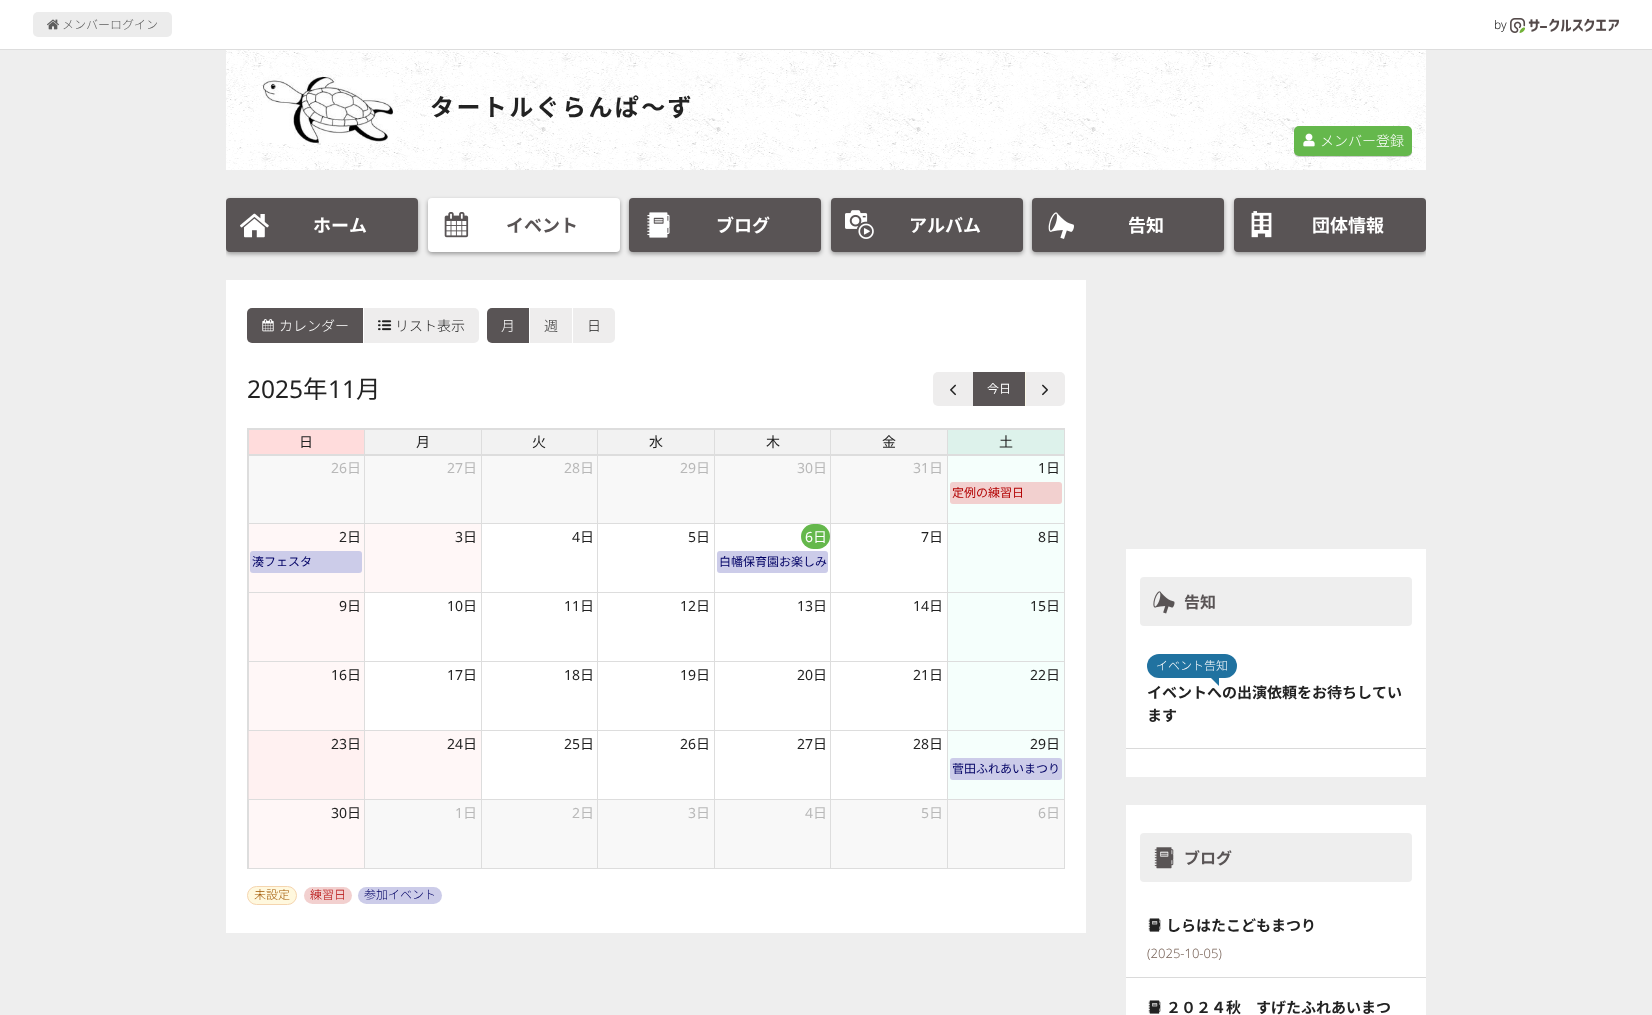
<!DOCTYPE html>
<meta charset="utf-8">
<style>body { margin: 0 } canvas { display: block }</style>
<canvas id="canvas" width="1652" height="1015"></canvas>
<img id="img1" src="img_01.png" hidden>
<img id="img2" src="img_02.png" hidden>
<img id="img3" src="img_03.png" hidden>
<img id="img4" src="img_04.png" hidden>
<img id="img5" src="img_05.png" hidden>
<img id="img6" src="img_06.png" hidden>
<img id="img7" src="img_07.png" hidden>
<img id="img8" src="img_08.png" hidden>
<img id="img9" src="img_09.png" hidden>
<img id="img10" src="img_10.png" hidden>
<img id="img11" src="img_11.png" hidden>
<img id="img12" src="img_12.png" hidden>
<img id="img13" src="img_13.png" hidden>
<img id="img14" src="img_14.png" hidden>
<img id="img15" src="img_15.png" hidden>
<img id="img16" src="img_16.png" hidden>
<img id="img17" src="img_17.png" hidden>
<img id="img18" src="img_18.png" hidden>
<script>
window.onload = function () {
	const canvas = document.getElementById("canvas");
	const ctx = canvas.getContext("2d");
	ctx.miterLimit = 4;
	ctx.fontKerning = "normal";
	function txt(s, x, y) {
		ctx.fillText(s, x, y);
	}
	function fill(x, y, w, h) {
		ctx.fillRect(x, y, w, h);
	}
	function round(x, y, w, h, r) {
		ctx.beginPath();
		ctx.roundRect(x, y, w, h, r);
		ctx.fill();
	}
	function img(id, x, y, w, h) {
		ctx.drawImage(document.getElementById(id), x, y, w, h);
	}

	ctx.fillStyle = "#EEEEEE";
	fill(0, 0, 1652, 1015);
	ctx.fillStyle = "#FFFFFF";
	fill(0, 0, 1652, 49);
	ctx.fillStyle = "#DDDDDD";
	fill(0, 49, 1652, 1);
	ctx.fillStyle = "#ECECEC";
	round(33, 12, 139, 25, 5);
	img("img1", 47, 19, 12, 11);
	img("img2", 1510, 18, 109, 15);
	img("img3", 226, 50, 1200, 120);
	img("img4", 263, 77, 130, 66);
	ctx.fillStyle = "rgba(0, 0, 0, 0.2)";
	ctx.filter = "blur(0.5px)";
	ctx.beginPath();
	ctx.roundRect(1294, 127, 118, 30, 5);
	ctx.fill();
	ctx.filter = "none";
	ctx.fillStyle = "#65B84C";
	round(1294, 126, 118, 30, 5);
	img("img5", 1303, 133, 12, 14);
	ctx.save();
	ctx.beginPath();
	ctx.rect(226, 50, 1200, 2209);
	ctx.clip();
	ctx.fillStyle = "rgba(0, 0, 0, 0.35)";
	ctx.filter = "blur(2px)";
	ctx.beginPath();
	ctx.roundRect(226, 200, 192, 54, 4);
	ctx.fill();
	ctx.filter = "none";
	ctx.restore();
	ctx.fillStyle = "#595455";
	round(226, 198, 192, 54, 4);
	img("img6", 240, 213, 29, 25);
	ctx.fillStyle = "rgba(0, 0, 0, 0.35)";
	ctx.filter = "blur(2px)";
	ctx.beginPath();
	ctx.roundRect(428, 200, 192, 54, 4);
	ctx.fill();
	ctx.filter = "none";
	ctx.fillStyle = "#FFFFFF";
	round(428, 198, 192, 54, 4);
	img("img7", 444, 212, 25, 26);
	ctx.fillStyle = "rgba(0, 0, 0, 0.35)";
	ctx.filter = "blur(2px)";
	ctx.beginPath();
	ctx.roundRect(629, 200, 192, 54, 4);
	ctx.fill();
	ctx.filter = "none";
	ctx.fillStyle = "#595455";
	round(629, 198, 192, 54, 4);
	img("img8", 647, 212, 23, 26);
	ctx.fillStyle = "rgba(0, 0, 0, 0.35)";
	ctx.filter = "blur(2px)";
	ctx.beginPath();
	ctx.roundRect(831, 200, 192, 54, 4);
	ctx.fill();
	ctx.filter = "none";
	ctx.fillStyle = "#595455";
	round(831, 198, 192, 54, 4);
	img("img9", 845, 210, 29, 29);
	ctx.fillStyle = "rgba(0, 0, 0, 0.35)";
	ctx.filter = "blur(2px)";
	ctx.beginPath();
	ctx.roundRect(1032, 200, 192, 54, 4);
	ctx.fill();
	ctx.filter = "none";
	ctx.fillStyle = "#595455";
	round(1032, 198, 192, 54, 4);
	img("img10", 1048, 212, 26, 27);
	ctx.save();
	ctx.beginPath();
	ctx.rect(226, 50, 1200, 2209);
	ctx.clip();
	ctx.fillStyle = "rgba(0, 0, 0, 0.35)";
	ctx.filter = "blur(2px)";
	ctx.beginPath();
	ctx.roundRect(1234, 200, 192, 54, 4);
	ctx.fill();
	ctx.filter = "none";
	ctx.restore();
	round(1234, 198, 192, 54, 4);
	img("img11", 1251, 211, 21, 27);
	ctx.fillStyle = "#FFFFFF";
	fill(226, 280, 860, 653);
	ctx.fillStyle = "#595455";
	ctx.beginPath();
	ctx.roundRect(247, 308, 117, 35, [5, 0, 0, 5]);
	ctx.fill();
	ctx.fillStyle = "#FFFFFF";
	fill(363, 308, 1, 35);
	img("img12", 262, 319, 12, 13);
	ctx.fillStyle = "#EEEDED";
	ctx.beginPath();
	ctx.roundRect(364, 308, 115, 35, [0, 5, 5, 0]);
	ctx.fill();
	img("img13", 378, 320, 14, 11);
	ctx.fillStyle = "#595455";
	ctx.beginPath();
	ctx.roundRect(487, 308, 43, 35, [5, 0, 0, 5]);
	ctx.fill();
	ctx.fillStyle = "#FFFFFF";
	fill(529, 308, 1, 35);
	ctx.fillStyle = "#EEEDED";
	fill(530, 308, 42, 35);
	ctx.beginPath();
	ctx.roundRect(573, 308, 42, 35, [0, 5, 5, 0]);
	ctx.fill();
	round(933, 372, 132, 34, 5);
	img("img14", 950, 384, 6, 12);
	ctx.fillStyle = "#595455";
	fill(973, 372, 52, 34);
	ctx.fillStyle = "#FAF7E7";
	fill(1025, 372, 1, 34);
	img("img15", 1042, 384, 6, 12);
	ctx.fillStyle = "#DDDDDD";
	fill(247, 428, 818, 1);
	fill(247, 428, 1, 441);
	fill(1064, 429, 1, 26);
	ctx.fillStyle = "#F2F2F2";
	fill(365, 430, 582, 24);
	ctx.fillStyle = "#FFDCDC";
	fill(249, 430, 115, 24);
	ctx.fillStyle = "#DDDDDD";
	fill(947, 429, 117, 1);
	fill(947, 454, 117, 2);
	fill(947, 429, 1, 26);
	fill(830, 429, 118, 1);
	fill(830, 454, 118, 1);
	fill(830, 429, 1, 26);
	fill(714, 429, 117, 1);
	fill(714, 454, 117, 1);
	fill(714, 429, 1, 26);
	fill(597, 429, 118, 1);
	fill(597, 454, 118, 1);
	fill(597, 429, 1, 26);
	fill(481, 429, 117, 1);
	fill(481, 454, 117, 1);
	fill(481, 429, 1, 26);
	fill(364, 429, 118, 1);
	fill(364, 454, 118, 1);
	fill(364, 429, 1, 26);
	fill(248, 429, 117, 1);
	fill(248, 454, 117, 1);
	fill(248, 429, 1, 26);
	ctx.fillStyle = "#DDF2EB";
	fill(948, 430, 116, 24);
	ctx.fillStyle = "#DDDDDD";
	fill(1064, 455, 1, 414);
	fill(248, 868, 817, 1);
	ctx.fillStyle = "#F8F8F8";
	fill(249, 456, 115, 67);
	ctx.fillStyle = "#DDDDDD";
	fill(947, 523, 117, 1);
	fill(947, 592, 117, 1);
	fill(947, 661, 117, 1);
	fill(947, 730, 117, 1);
	fill(947, 799, 117, 1);
	fill(947, 799, 1, 69);
	fill(830, 799, 118, 1);
	fill(947, 730, 1, 70);
	fill(830, 730, 118, 1);
	fill(947, 661, 1, 70);
	fill(830, 661, 118, 1);
	fill(947, 592, 1, 70);
	fill(830, 592, 118, 1);
	fill(947, 523, 1, 70);
	fill(830, 523, 118, 1);
	fill(947, 455, 1, 69);
	fill(830, 455, 118, 1);
	fill(830, 799, 1, 69);
	fill(714, 799, 117, 1);
	fill(830, 730, 1, 70);
	fill(714, 730, 117, 1);
	fill(830, 661, 1, 70);
	fill(714, 661, 117, 1);
	fill(830, 592, 1, 70);
	fill(714, 592, 117, 1);
	fill(830, 523, 1, 70);
	fill(714, 523, 117, 1);
	fill(830, 455, 1, 69);
	fill(714, 455, 117, 1);
	fill(714, 799, 1, 69);
	fill(597, 799, 118, 1);
	fill(714, 730, 1, 70);
	fill(597, 730, 118, 1);
	fill(714, 661, 1, 70);
	fill(597, 661, 118, 1);
	fill(714, 592, 1, 70);
	fill(597, 592, 118, 1);
	fill(714, 523, 1, 70);
	fill(597, 523, 118, 1);
	fill(714, 455, 1, 69);
	fill(597, 455, 118, 1);
	fill(597, 799, 1, 69);
	fill(481, 799, 117, 1);
	fill(597, 730, 1, 70);
	fill(481, 730, 117, 1);
	fill(597, 661, 1, 70);
	fill(481, 661, 117, 1);
	fill(597, 592, 1, 70);
	fill(481, 592, 117, 1);
	fill(597, 523, 1, 70);
	fill(481, 523, 117, 1);
	fill(597, 455, 1, 69);
	fill(481, 455, 117, 1);
	fill(481, 799, 1, 69);
	fill(364, 799, 118, 1);
	fill(481, 730, 1, 70);
	fill(364, 730, 118, 1);
	fill(481, 661, 1, 70);
	fill(364, 661, 118, 1);
	fill(481, 592, 1, 70);
	fill(364, 592, 118, 1);
	fill(481, 523, 1, 70);
	fill(364, 523, 118, 1);
	fill(481, 455, 1, 69);
	fill(364, 455, 118, 1);
	fill(364, 799, 1, 69);
	fill(248, 799, 117, 1);
	fill(364, 730, 1, 70);
	fill(248, 730, 117, 1);
	fill(364, 661, 1, 70);
	fill(248, 661, 117, 1);
	fill(364, 592, 1, 70);
	fill(248, 592, 117, 1);
	fill(364, 523, 1, 70);
	fill(248, 523, 117, 1);
	fill(364, 455, 1, 69);
	fill(248, 455, 117, 1);
	fill(248, 661, 1, 70);
	fill(248, 592, 1, 70);
	fill(248, 523, 1, 70);
	fill(248, 455, 1, 69);
	ctx.fillStyle = "#F8F8F8";
	fill(365, 456, 116, 67);
	fill(482, 456, 115, 67);
	fill(598, 456, 116, 67);
	fill(715, 456, 115, 67);
	fill(831, 456, 116, 67);
	ctx.fillStyle = "#F5FFFC";
	fill(948, 456, 116, 67);
	ctx.fillStyle = "#F2D0CF";
	round(950, 482, 112, 22, 3);
	ctx.fillStyle = "#FFF7F7";
	fill(249, 524, 115, 68);
	ctx.fillStyle = "#CCCCE9";
	round(250, 551, 112, 22, 3);
	ctx.fillStyle = "#FFF7F7";
	fill(365, 524, 116, 68);
	ctx.fillStyle = "#65B84C";
	round(801, 524, 29, 25, 12.5);
	ctx.fillStyle = "#CCCCE9";
	round(717, 551, 111, 22, 3);
	ctx.fillStyle = "#F5FFFC";
	fill(948, 524, 116, 68);
	ctx.fillStyle = "#FFF7F7";
	fill(249, 593, 115, 68);
	ctx.fillStyle = "#F5FFFC";
	fill(948, 593, 116, 68);
	ctx.fillStyle = "#FFF7F7";
	fill(249, 662, 115, 68);
	ctx.fillStyle = "#F5FFFC";
	fill(948, 662, 116, 68);
	ctx.fillStyle = "#FFF1F1";
	fill(249, 731, 115, 68);
	ctx.fillStyle = "#E7DFDF";
	fill(248, 731, 1, 68);
	ctx.fillStyle = "#FFF7F7";
	fill(365, 731, 116, 68);
	ctx.fillStyle = "#F5FFFC";
	fill(948, 731, 116, 68);
	ctx.fillStyle = "#CCCCE9";
	round(950, 758, 112, 22, 3);
	ctx.fillStyle = "#FFF7F7";
	fill(249, 800, 115, 68);
	ctx.fillStyle = "#DDDDDD";
	fill(248, 799, 1, 69);
	ctx.fillStyle = "#F8F8F8";
	fill(365, 800, 116, 68);
	fill(482, 800, 115, 68);
	fill(598, 800, 116, 68);
	fill(715, 800, 115, 68);
	fill(831, 800, 116, 68);
	fill(948, 800, 116, 68);
	ctx.fillStyle = "#FFF8DE";
	ctx.beginPath();
	ctx.roundRect(247.5, 886.5, 49, 18, 9);
	ctx.fill();
	ctx.strokeStyle = "#F5D5AF";
	ctx.stroke();
	ctx.fillStyle = "#F2D0CF";
	round(304, 887, 48, 17, 8.5);
	ctx.fillStyle = "#CCCCE9";
	round(358, 887, 84, 17, 8.5);
	ctx.fillStyle = "#FFFFFF";
	fill(1126, 549, 300, 228);
	ctx.fillStyle = "#EEEEEE";
	round(1140, 577, 272, 49, 4);
	img("img16", 1153, 591, 22, 23);
	ctx.fillStyle = "#DADADA";
	fill(1126, 748, 300, 1);
	ctx.fillStyle = "#2072A0";
	round(1147, 654, 90, 24, 12);
	ctx.fillStyle = "#FFFFFF";
	fill(1126, 805, 300, 210);
	ctx.fillStyle = "#EEEEEE";
	round(1140, 833, 272, 49, 4);
	img("img17", 1154, 847, 20, 22);
	ctx.fillStyle = "#DADADA";
	fill(1126, 977, 300, 1);
	img("img18", 1148, 918, 13, 14);
	img("img18", 1148, 1000, 13, 14);
	ctx.font = "300 12px Noto Sans CJK JP";
	ctx.fillStyle = "#5E5E5E";
	txt("メンバーログイン", 62, 29);
	ctx.font = "300 12px Noto Sans";
	ctx.fillStyle = "#222222";
	txt("by", 1494, 29);
	ctx.letterSpacing = "2.4px";
	ctx.font = "bold 24px Noto Sans CJK JP";
	txt("タートルぐらんぱ～ず", 430, 116);
	ctx.letterSpacing = "0px";
	ctx.font = "300 14px Noto Sans CJK JP";
	ctx.fillStyle = "#FFFFFF";
	txt("メンバー登録", 1320, 146);
	ctx.font = "bold 18px Noto Sans CJK JP";
	txt("ホーム", 313, 232);
	ctx.fillStyle = "#595455";
	txt("イベント", 506, 232);
	ctx.fillStyle = "#FFFFFF";
	txt("ブログ", 716, 232);
	txt("アルバム", 909, 232);
	txt("告知", 1128, 232);
	txt("団体情報", 1312, 232);
	ctx.font = "300 14px Noto Sans CJK JP";
	txt("カレンダー", 279, 331);
	ctx.fillStyle = "#222222";
	txt("リスト表示", 395, 331);
	ctx.fillStyle = "#FFFFFF";
	txt("月", 501, 331);
	ctx.fillStyle = "#222222";
	txt("週", 544, 331);
	txt("日", 587, 331);
	ctx.font = "24.5px Noto Sans";
	txt("2025", 247, 398);
	ctx.font = "24.5px Noto Sans CJK JP";
	txt("年", 303, 398);
	ctx.font = "24.5px Noto Sans";
	txt("11", 328, 398);
	ctx.font = "24.5px Noto Sans CJK JP";
	txt("月", 356, 398);
	ctx.font = "12px Noto Sans CJK JP";
	ctx.fillStyle = "#FFFFFF";
	txt("今日", 987, 393);
	ctx.font = "14px Noto Sans CJK JP";
	ctx.fillStyle = "#222222";
	txt("日", 299, 447);
	txt("月", 416, 447);
	txt("火", 532, 447);
	txt("水", 649, 447);
	txt("木", 766, 447);
	txt("金", 882, 447);
	txt("土", 999, 447);
	ctx.font = "14px Noto Sans";
	ctx.fillStyle = "#B8B8B8";
	txt("26", 331, 473);
	ctx.font = "14px Noto Sans CJK JP";
	txt("日", 347, 473);
	ctx.font = "14px Noto Sans";
	txt("27", 447, 473);
	ctx.font = "14px Noto Sans CJK JP";
	txt("日", 463, 473);
	ctx.font = "14px Noto Sans";
	txt("28", 564, 473);
	ctx.font = "14px Noto Sans CJK JP";
	txt("日", 580, 473);
	ctx.font = "14px Noto Sans";
	txt("29", 680, 473);
	ctx.font = "14px Noto Sans CJK JP";
	txt("日", 696, 473);
	ctx.font = "14px Noto Sans";
	txt("30", 797, 473);
	ctx.font = "14px Noto Sans CJK JP";
	txt("日", 813, 473);
	ctx.font = "14px Noto Sans";
	txt("31", 913, 473);
	ctx.font = "14px Noto Sans CJK JP";
	txt("日", 929, 473);
	ctx.font = "14px Noto Sans";
	ctx.fillStyle = "#222222";
	txt("1", 1038, 473);
	ctx.font = "14px Noto Sans CJK JP";
	txt("日", 1046, 473);
	ctx.font = "12px Noto Sans CJK JP";
	ctx.fillStyle = "#B20000";
	txt("定例の練習日", 952, 497);
	ctx.font = "14px Noto Sans";
	ctx.fillStyle = "#222222";
	txt("2", 339, 542);
	ctx.font = "14px Noto Sans CJK JP";
	txt("日", 347, 542);
	ctx.font = "12px Noto Sans CJK JP";
	ctx.fillStyle = "#000064";
	txt("湊フェスタ", 252, 566);
	ctx.font = "14px Noto Sans";
	ctx.fillStyle = "#222222";
	txt("3", 455, 542);
	ctx.font = "14px Noto Sans CJK JP";
	txt("日", 463, 542);
	ctx.font = "14px Noto Sans";
	txt("4", 572, 542);
	ctx.font = "14px Noto Sans CJK JP";
	txt("日", 580, 542);
	ctx.font = "14px Noto Sans";
	txt("5", 688, 542);
	ctx.font = "14px Noto Sans CJK JP";
	txt("日", 696, 542);
	ctx.font = "14px Noto Sans";
	ctx.fillStyle = "#FFFFFF";
	txt("6", 805, 542);
	ctx.font = "14px Noto Sans CJK JP";
	txt("日", 813, 542);
	ctx.font = "12px Noto Sans CJK JP";
	ctx.fillStyle = "#000064";
	txt("白幡保育園お楽しみ", 719, 566);
	ctx.font = "14px Noto Sans";
	ctx.fillStyle = "#222222";
	txt("7", 921, 542);
	ctx.font = "14px Noto Sans CJK JP";
	txt("日", 929, 542);
	ctx.font = "14px Noto Sans";
	txt("8", 1038, 542);
	ctx.font = "14px Noto Sans CJK JP";
	txt("日", 1046, 542);
	ctx.font = "14px Noto Sans";
	txt("9", 339, 611);
	ctx.font = "14px Noto Sans CJK JP";
	txt("日", 347, 611);
	ctx.font = "14px Noto Sans";
	txt("10", 447, 611);
	ctx.font = "14px Noto Sans CJK JP";
	txt("日", 463, 611);
	ctx.font = "14px Noto Sans";
	txt("11", 564, 611);
	ctx.font = "14px Noto Sans CJK JP";
	txt("日", 580, 611);
	ctx.font = "14px Noto Sans";
	txt("12", 680, 611);
	ctx.font = "14px Noto Sans CJK JP";
	txt("日", 696, 611);
	ctx.font = "14px Noto Sans";
	txt("13", 797, 611);
	ctx.font = "14px Noto Sans CJK JP";
	txt("日", 813, 611);
	ctx.font = "14px Noto Sans";
	txt("14", 913, 611);
	ctx.font = "14px Noto Sans CJK JP";
	txt("日", 929, 611);
	ctx.font = "14px Noto Sans";
	txt("15", 1030, 611);
	ctx.font = "14px Noto Sans CJK JP";
	txt("日", 1046, 611);
	ctx.font = "14px Noto Sans";
	txt("16", 331, 680);
	ctx.font = "14px Noto Sans CJK JP";
	txt("日", 347, 680);
	ctx.font = "14px Noto Sans";
	txt("17", 447, 680);
	ctx.font = "14px Noto Sans CJK JP";
	txt("日", 463, 680);
	ctx.font = "14px Noto Sans";
	txt("18", 564, 680);
	ctx.font = "14px Noto Sans CJK JP";
	txt("日", 580, 680);
	ctx.font = "14px Noto Sans";
	txt("19", 680, 680);
	ctx.font = "14px Noto Sans CJK JP";
	txt("日", 696, 680);
	ctx.font = "14px Noto Sans";
	txt("20", 797, 680);
	ctx.font = "14px Noto Sans CJK JP";
	txt("日", 813, 680);
	ctx.font = "14px Noto Sans";
	txt("21", 913, 680);
	ctx.font = "14px Noto Sans CJK JP";
	txt("日", 929, 680);
	ctx.font = "14px Noto Sans";
	txt("22", 1030, 680);
	ctx.font = "14px Noto Sans CJK JP";
	txt("日", 1046, 680);
	ctx.font = "14px Noto Sans";
	txt("23", 331, 749);
	ctx.font = "14px Noto Sans CJK JP";
	txt("日", 347, 749);
	ctx.font = "14px Noto Sans";
	txt("24", 447, 749);
	ctx.font = "14px Noto Sans CJK JP";
	txt("日", 463, 749);
	ctx.font = "14px Noto Sans";
	txt("25", 564, 749);
	ctx.font = "14px Noto Sans CJK JP";
	txt("日", 580, 749);
	ctx.font = "14px Noto Sans";
	txt("26", 680, 749);
	ctx.font = "14px Noto Sans CJK JP";
	txt("日", 696, 749);
	ctx.font = "14px Noto Sans";
	txt("27", 797, 749);
	ctx.font = "14px Noto Sans CJK JP";
	txt("日", 813, 749);
	ctx.font = "14px Noto Sans";
	txt("28", 913, 749);
	ctx.font = "14px Noto Sans CJK JP";
	txt("日", 929, 749);
	ctx.font = "14px Noto Sans";
	txt("29", 1030, 749);
	ctx.font = "14px Noto Sans CJK JP";
	txt("日", 1046, 749);
	ctx.font = "12px Noto Sans CJK JP";
	ctx.fillStyle = "#000064";
	txt("菅田ふれあいまつり", 952, 773);
	ctx.font = "14px Noto Sans";
	ctx.fillStyle = "#222222";
	txt("30", 331, 818);
	ctx.font = "14px Noto Sans CJK JP";
	txt("日", 347, 818);
	ctx.font = "14px Noto Sans";
	ctx.fillStyle = "#B8B8B8";
	txt("1", 455, 818);
	ctx.font = "14px Noto Sans CJK JP";
	txt("日", 463, 818);
	ctx.font = "14px Noto Sans";
	txt("2", 572, 818);
	ctx.font = "14px Noto Sans CJK JP";
	txt("日", 580, 818);
	ctx.font = "14px Noto Sans";
	txt("3", 688, 818);
	ctx.font = "14px Noto Sans CJK JP";
	txt("日", 696, 818);
	ctx.font = "14px Noto Sans";
	txt("4", 805, 818);
	ctx.font = "14px Noto Sans CJK JP";
	txt("日", 813, 818);
	ctx.font = "14px Noto Sans";
	txt("5", 921, 818);
	ctx.font = "14px Noto Sans CJK JP";
	txt("日", 929, 818);
	ctx.font = "14px Noto Sans";
	txt("6", 1038, 818);
	ctx.font = "14px Noto Sans CJK JP";
	txt("日", 1046, 818);
	ctx.font = "300 12px Noto Sans CJK JP";
	ctx.fillStyle = "#A15700";
	txt("未設定", 254, 899);
	ctx.fillStyle = "#B20000";
	txt("練習日", 310, 899);
	ctx.fillStyle = "#000064";
	txt("参加イベント", 364, 899);
	ctx.font = "bold 16px Noto Sans CJK JP";
	ctx.fillStyle = "#595455";
	txt("告知", 1184, 608);
	ctx.font = "300 12px Noto Sans CJK JP";
	ctx.fillStyle = "#FFFFFF";
	txt("イベント告知", 1156, 670);
	ctx.font = "bold 15px Noto Sans CJK JP";
	ctx.fillStyle = "#222222";
	txt("イベントへの出演依頼をお待ちしてい", 1147, 698);
	ctx.fillStyle = "#2072A0";
	ctx.beginPath();
	ctx.moveTo(1210, 677);
	ctx.lineTo(1219, 677);
	ctx.lineTo(1219, 686);
	ctx.closePath();
	ctx.fill();
	ctx.fillStyle = "#222222";
	txt("ます", 1147, 721);
	ctx.font = "bold 16px Noto Sans CJK JP";
	ctx.fillStyle = "#595455";
	txt("ブログ", 1184, 864);
	ctx.font = "bold 15px Noto Sans CJK JP";
	ctx.fillStyle = "#222222";
	txt("しらはたこどもまつり", 1166, 931);
	ctx.font = "300 13px Noto Sans";
	ctx.fillStyle = "#776257";
	txt("(2025-10-05)", 1147, 958);
	ctx.font = "bold 15px Noto Sans CJK JP";
	ctx.fillStyle = "#222222";
	txt("２０２４秋　すげたふれあいまつ", 1166, 1013);
};
</script>
